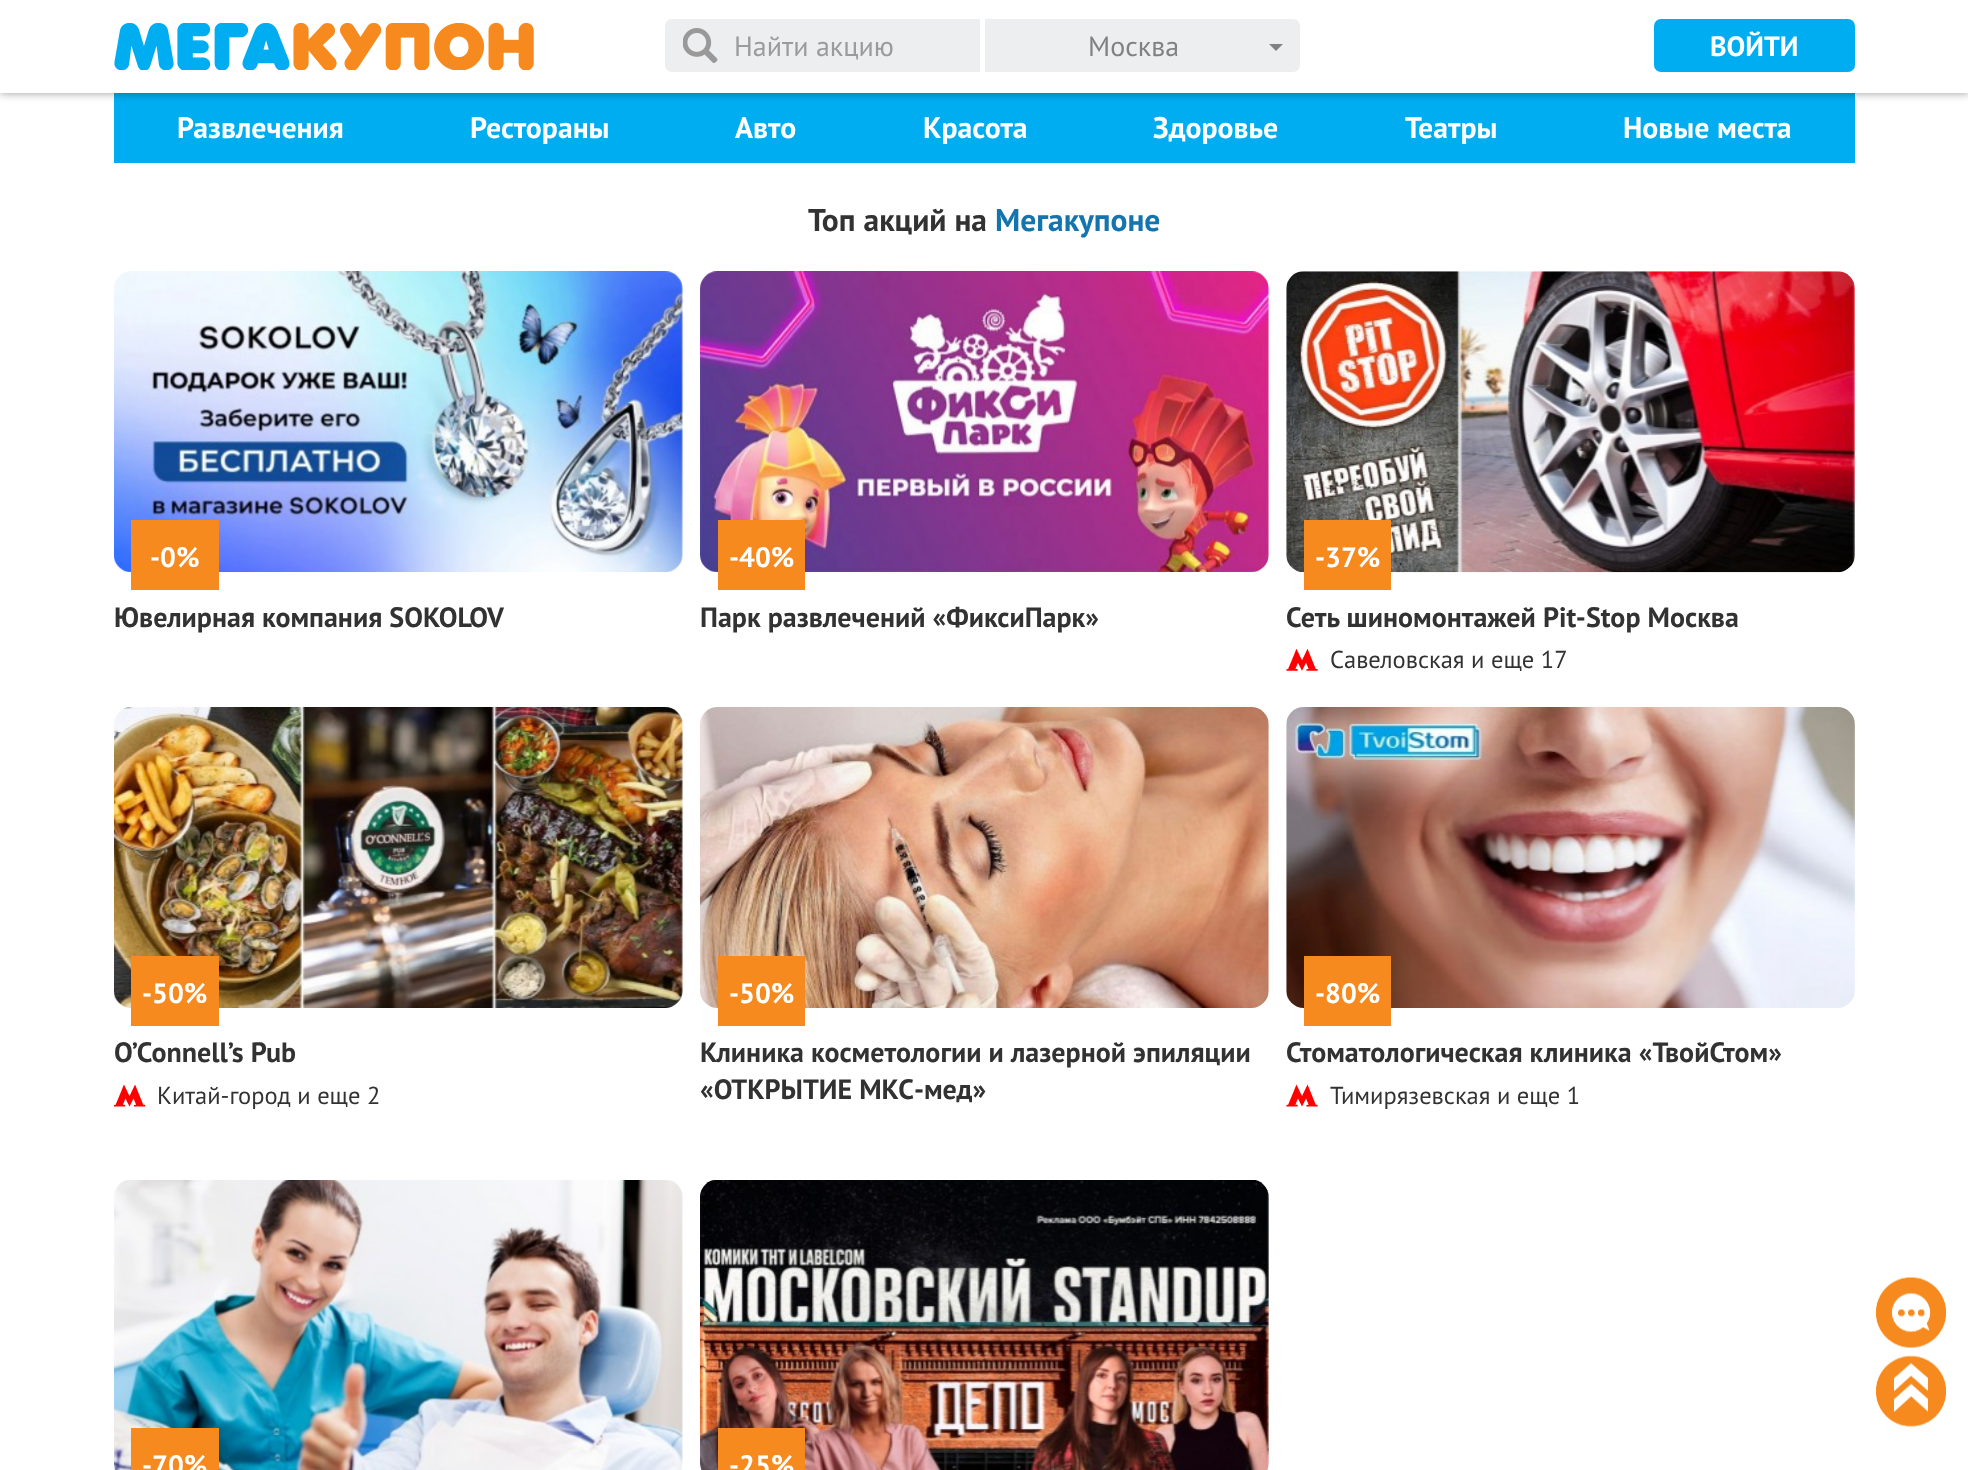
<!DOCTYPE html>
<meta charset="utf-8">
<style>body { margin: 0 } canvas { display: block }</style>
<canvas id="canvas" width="1968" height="1470"></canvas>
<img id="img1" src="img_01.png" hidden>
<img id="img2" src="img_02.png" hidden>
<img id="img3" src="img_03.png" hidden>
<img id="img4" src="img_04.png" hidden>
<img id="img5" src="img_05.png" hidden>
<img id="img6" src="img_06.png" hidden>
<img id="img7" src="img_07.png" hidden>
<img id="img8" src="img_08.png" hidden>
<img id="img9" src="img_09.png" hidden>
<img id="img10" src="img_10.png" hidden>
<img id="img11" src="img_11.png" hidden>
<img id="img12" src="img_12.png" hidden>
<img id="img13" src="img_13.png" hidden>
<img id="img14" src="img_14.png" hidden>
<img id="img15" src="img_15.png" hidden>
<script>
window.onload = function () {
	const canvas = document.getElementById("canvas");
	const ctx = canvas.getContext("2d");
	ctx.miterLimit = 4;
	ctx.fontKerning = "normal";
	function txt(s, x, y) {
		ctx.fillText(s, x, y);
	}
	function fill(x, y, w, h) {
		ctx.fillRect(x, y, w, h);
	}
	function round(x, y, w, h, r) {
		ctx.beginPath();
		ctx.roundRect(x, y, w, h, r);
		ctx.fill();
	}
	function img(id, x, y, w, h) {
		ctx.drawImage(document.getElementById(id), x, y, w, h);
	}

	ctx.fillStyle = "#FFFFFF";
	fill(0, 0, 1968, 1470);
	ctx.fillStyle = "#00ADF1";
	fill(114, 93, 1741, 70);
	ctx.fillStyle = "rgba(0, 0, 0, 0.4)";
	ctx.filter = "blur(5px)";
	ctx.beginPath();
	ctx.rect(0, 0, 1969, 93);
	ctx.fill();
	ctx.filter = "none";
	ctx.fillStyle = "#FFFFFF";
	fill(0, 0, 1968, 93);
	img("img1", 114, 23, 420, 47);
	ctx.fillStyle = "#EDEEF0";
	ctx.beginPath();
	ctx.roundRect(665, 19, 320, 53, [7, 0, 0, 7]);
	ctx.fill();
	img("img2", 683, 28, 35, 35);
	ctx.fillStyle = "#FFFFFF";
	fill(980, 19, 5, 53);
	ctx.fillStyle = "#EDEEF0";
	ctx.beginPath();
	ctx.roundRect(985, 19, 315, 53, [0, 7, 7, 0]);
	ctx.fill();
	ctx.fillStyle = "#818181";
	ctx.beginPath();
	ctx.moveTo(1269, 44);
	ctx.lineTo(1283, 44);
	ctx.lineTo(1276, 51);
	ctx.closePath();
	ctx.fill();
	ctx.fillStyle = "#00ADF1";
	round(1654, 19, 201, 53, 7);
	img("img3", 114, 271, 569, 301);
	ctx.fillStyle = "#F68A1F";
	fill(131, 520, 88, 70);
	img("img4", 700, 271, 569, 301);
	fill(718, 520, 87, 70);
	img("img5", 1286, 271, 569, 302);
	fill(1304, 520, 87, 70);
	img("img6", 1286, 649, 32, 22);
	img("img7", 114, 707, 569, 301);
	fill(131, 956, 88, 70);
	img("img8", 113, 1084, 33, 23);
	img("img9", 700, 707, 569, 301);
	fill(718, 956, 87, 70);
	img("img10", 1286, 707, 569, 301);
	fill(1304, 956, 87, 70);
	img("img11", 1286, 1084, 32, 23);
	img("img12", 114, 1180, 569, 290);
	fill(131, 1428, 88, 42);
	img("img13", 700, 1180, 569, 290);
	fill(718, 1428, 87, 42);
	img("img14", 1876, 1277, 70, 71);
	img("img15", 1876, 1355, 70, 72);
	ctx.font = "28px PT Sans";
	ctx.fillStyle = "#9B9B9B";
	txt("Найти акцию", 734, 56);
	ctx.fillStyle = "#818181";
	txt("Москва", 1088, 56);
	ctx.font = "bold 28px PT Sans";
	ctx.fillStyle = "#FFFFFF";
	txt("ВОЙТИ", 1710, 56);
	ctx.font = "bold 29.75px PT Sans";
	txt("Развлечения", 177, 138);
	txt("Рестораны", 470, 138);
	txt("Авто", 735, 138);
	txt("Красота", 923, 138);
	txt("Здоровье", 1153, 138);
	txt("Театры", 1405, 138);
	txt("Новые места", 1623, 138);
	ctx.font = "bold 31.5px PT Sans";
	ctx.fillStyle = "#323232";
	txt("Топ акций на", 808, 231);
	ctx.fillStyle = "#1374AE";
	txt("Мегакупоне", 995, 231);
	ctx.font = "bold 28px PT Sans";
	ctx.fillStyle = "#FFFFFF";
	txt("-0%", 150, 567);
	ctx.fillStyle = "#323232";
	txt("Ювелирная компания SOKOLOV", 114, 627);
	ctx.fillStyle = "#FFFFFF";
	txt("-40%", 729, 567);
	ctx.fillStyle = "#323232";
	txt("Парк развлечений «ФиксиПарк»", 700, 627);
	ctx.fillStyle = "#FFFFFF";
	txt("-37%", 1315, 567);
	ctx.fillStyle = "#323232";
	txt("Сеть шиномонтажей Pit-Stop Москва", 1286, 627);
	ctx.font = "24.5px PT Sans";
	txt("Савеловская и еще 17", 1330, 668);
	ctx.font = "bold 28px PT Sans";
	ctx.fillStyle = "#FFFFFF";
	txt("-50%", 142, 1003);
	ctx.fillStyle = "#323232";
	txt("O’Connell’s Pub", 114, 1062);
	ctx.font = "24.5px PT Sans";
	txt("Китай-город и еще 2", 157, 1104);
	ctx.font = "bold 28px PT Sans";
	ctx.fillStyle = "#FFFFFF";
	txt("-50%", 729, 1003);
	ctx.fillStyle = "#323232";
	txt("Клиника косметологии и лазерной эпиляции", 700, 1062);
	txt("«ОТКРЫТИЕ МКС-мед»", 700, 1099);
	ctx.fillStyle = "#FFFFFF";
	txt("-80%", 1315, 1003);
	ctx.fillStyle = "#323232";
	txt("Стоматологическая клиника «ТвойСтом»", 1286, 1062);
	ctx.font = "24.5px PT Sans";
	txt("Тимирязевская и еще 1", 1330, 1104);
	ctx.font = "bold 28px PT Sans";
	ctx.fillStyle = "#FFFFFF";
	txt("-70%", 142, 1475);
	txt("-25%", 729, 1475);
};
</script>
